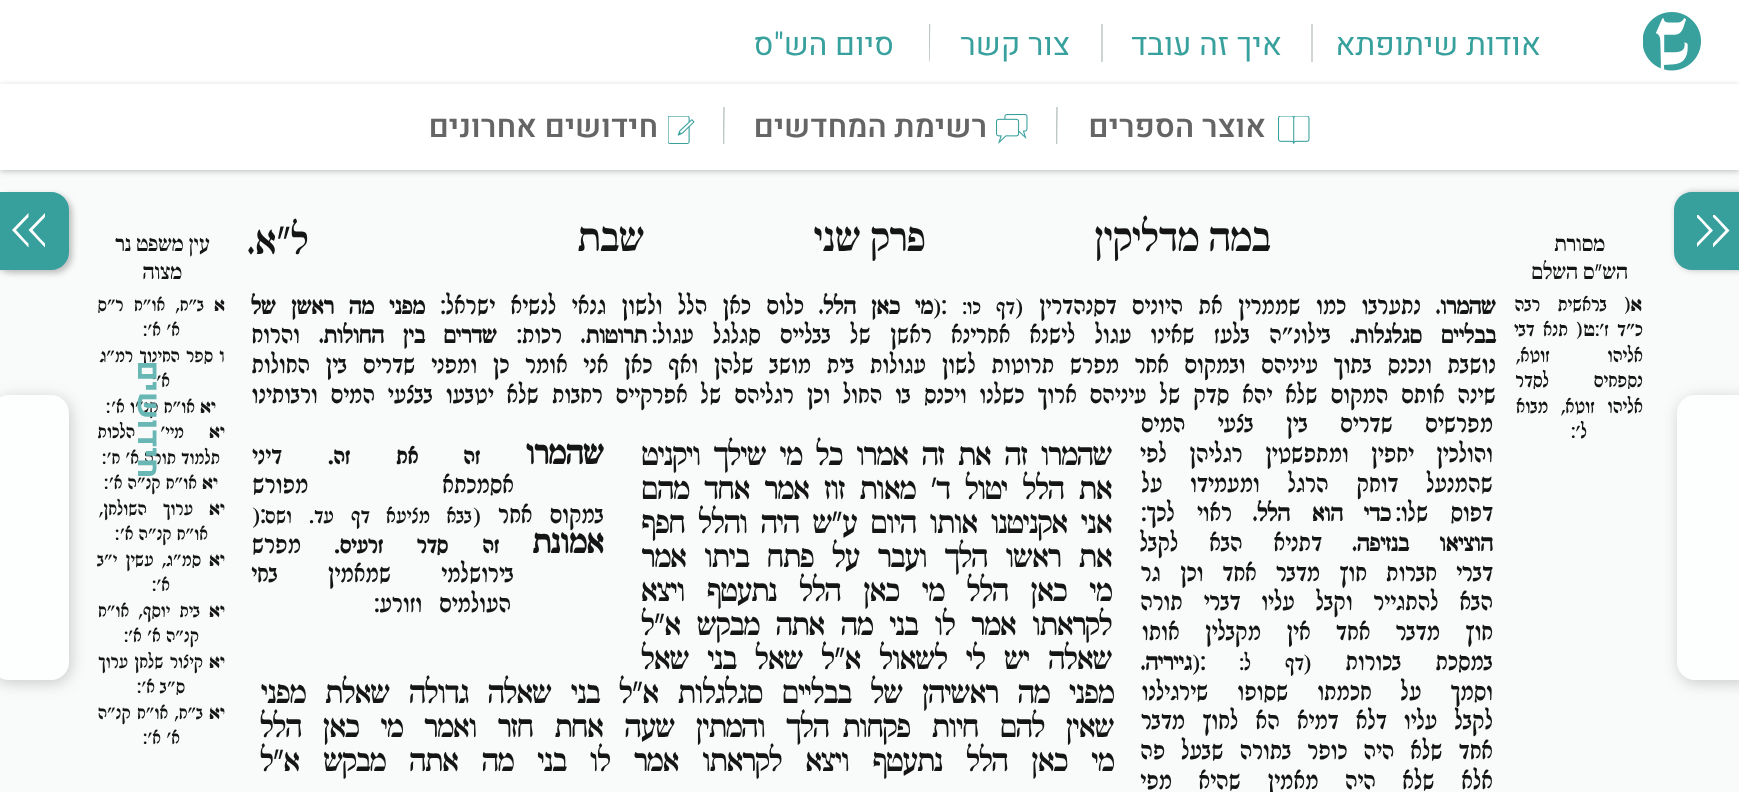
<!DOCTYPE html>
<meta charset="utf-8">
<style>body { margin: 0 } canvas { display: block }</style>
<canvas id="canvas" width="1739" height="792"></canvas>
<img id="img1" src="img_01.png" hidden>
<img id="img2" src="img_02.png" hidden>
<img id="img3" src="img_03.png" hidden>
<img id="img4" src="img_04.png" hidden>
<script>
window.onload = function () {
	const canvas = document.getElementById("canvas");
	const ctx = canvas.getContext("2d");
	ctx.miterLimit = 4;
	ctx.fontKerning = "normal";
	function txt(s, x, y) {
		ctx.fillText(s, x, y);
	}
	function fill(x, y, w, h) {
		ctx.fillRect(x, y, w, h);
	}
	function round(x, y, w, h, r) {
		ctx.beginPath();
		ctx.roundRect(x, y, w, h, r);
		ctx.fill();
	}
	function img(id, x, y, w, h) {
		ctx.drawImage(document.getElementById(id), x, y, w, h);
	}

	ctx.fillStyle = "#FFFFFF";
	fill(0, 0, 1739, 792);
	img("img1", 1643, 12, 58, 59);
	ctx.fillStyle = "#CED5D4";
	fill(1311, 24, 2, 38);
	fill(1101, 24, 2, 38);
	ctx.save();
	ctx.beginPath();
	ctx.rect(929, 24, 2, 38);
	ctx.clip();
	ctx.beginPath();
	ctx.moveTo(929, 61.5);
	ctx.lineTo(929.5, 24);
	ctx.strokeStyle = "#BEC7C6";
	ctx.lineWidth = 1.5;
	ctx.stroke();
	ctx.restore();
	ctx.fillStyle = "#F9FAFA";
	fill(0, 170, 1739, 622);
	ctx.fillStyle = "rgba(0, 0, 0, 0.25)";
	ctx.filter = "blur(3px)";
	ctx.beginPath();
	ctx.rect(0, 86, 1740, 85);
	ctx.fill();
	ctx.filter = "none";
	ctx.fillStyle = "#FFFFFF";
	fill(0, 84, 1739, 86);
	img("img2", 1278, 116, 32, 28);
	ctx.save();
	ctx.beginPath();
	ctx.rect(1056, 107, 2, 37);
	ctx.clip();
	ctx.beginPath();
	ctx.moveTo(1057, 106.5);
	ctx.lineTo(1056.5, 144);
	ctx.strokeStyle = "#BEC7C6";
	ctx.lineWidth = 1.5;
	ctx.stroke();
	ctx.restore();
	img("img3", 996, 114, 32, 30);
	ctx.save();
	ctx.beginPath();
	ctx.rect(723, 107, 2, 37);
	ctx.clip();
	ctx.beginPath();
	ctx.moveTo(724, 106.5);
	ctx.lineTo(723.5, 144);
	ctx.strokeStyle = "#BEC7C6";
	ctx.lineWidth = 1.5;
	ctx.stroke();
	ctx.restore();
	img("img4", 668, 116, 27, 28);
	ctx.fillStyle = "rgba(0, 0, 0, 0.25)";
	ctx.filter = "blur(3px)";
	ctx.beginPath();
	ctx.roundRect(1676, 192, 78, 78, 18);
	ctx.fill();
	ctx.filter = "none";
	ctx.fillStyle = "#37A09D";
	ctx.beginPath();
	ctx.moveTo(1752, 270);
	ctx.lineTo(1692, 270);
	ctx.bezierCurveTo(1682, 270, 1674, 262, 1674, 252);
	ctx.lineTo(1674, 210);
	ctx.bezierCurveTo(1674, 200, 1682, 192, 1692, 192);
	ctx.lineTo(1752, 192);
	ctx.closePath();
	ctx.fill();
	ctx.save();
	ctx.beginPath();
	ctx.rect(1713, 215, 17, 34);
	ctx.clip();
	ctx.fillStyle = "#FFFFFF";
	ctx.beginPath();
	ctx.moveTo(1717.5, 221.5);
	ctx.lineTo(1725.5, 230.5);
	ctx.lineTo(1713, 243.5);
	ctx.lineTo(1713, 247.5);
	ctx.lineTo(1729.5, 230.5);
	ctx.lineTo(1713, 213);
	ctx.lineTo(1713, 217);
	ctx.closePath();
	ctx.fill();
	ctx.restore();
	ctx.save();
	ctx.beginPath();
	ctx.rect(1697, 215, 16, 34);
	ctx.clip();
	ctx.fillStyle = "#FFFFFF";
	ctx.beginPath();
	ctx.moveTo(1701, 221.5);
	ctx.lineTo(1709, 230.5);
	ctx.lineTo(1696.5, 243.5);
	ctx.lineTo(1696.5, 247.5);
	ctx.lineTo(1713, 230.5);
	ctx.lineTo(1696.5, 213);
	ctx.lineTo(1696.5, 217);
	ctx.closePath();
	ctx.fill();
	ctx.restore();
	ctx.fillStyle = "rgba(65, 65, 65, 0.25)";
	ctx.filter = "blur(7.5px)";
	ctx.beginPath();
	ctx.roundRect(1679, 398, 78, 285, 18);
	ctx.fill();
	ctx.filter = "none";
	ctx.fillStyle = "#FDFEFE";
	round(1677, 395, 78, 285, 18);
	ctx.fillStyle = "rgba(0, 0, 0, 0.25)";
	ctx.filter = "blur(3px)";
	ctx.beginPath();
	ctx.roundRect(-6, 195, 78, 78, 18);
	ctx.fill();
	ctx.filter = "none";
	ctx.fillStyle = "#37A09D";
	ctx.beginPath();
	ctx.moveTo(-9, 192);
	ctx.lineTo(51, 192);
	ctx.bezierCurveTo(61, 192, 69, 200, 69, 210);
	ctx.lineTo(69, 252);
	ctx.bezierCurveTo(69, 262, 61, 270, 51, 270);
	ctx.lineTo(-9, 270);
	ctx.closePath();
	ctx.fill();
	ctx.fillStyle = "#FFFFFF";
	ctx.beginPath();
	ctx.moveTo(40.5, 239);
	ctx.lineTo(32.5, 230);
	ctx.lineTo(45, 217);
	ctx.lineTo(45, 213);
	ctx.lineTo(28.5, 230);
	ctx.lineTo(45, 247.5);
	ctx.lineTo(45, 243.5);
	ctx.closePath();
	ctx.moveTo(24, 239);
	ctx.lineTo(16, 230);
	ctx.lineTo(28.5, 217);
	ctx.lineTo(28.5, 213);
	ctx.lineTo(12, 230);
	ctx.lineTo(28.5, 247.5);
	ctx.lineTo(28.5, 243.5);
	ctx.closePath();
	ctx.fill();
	ctx.fillStyle = "rgba(65, 65, 65, 0.25)";
	ctx.filter = "blur(7.5px)";
	ctx.beginPath();
	ctx.roundRect(-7, 398, 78, 285, 18);
	ctx.fill();
	ctx.filter = "none";
	ctx.fillStyle = "#FDFEFE";
	round(-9, 395, 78, 285, 18);
	ctx.direction = "rtl";
	ctx.font = "31.5px Heebo";
	ctx.fillStyle = "#38A09D";
	txt("אודות שיתופתא", 1541, 55);
	txt("איך זה עובד", 1282, 55);
	txt("צור קשר", 1070, 55);
	txt("סיום הש\"ס", 894, 55);
	ctx.font = "500 31.5px Heebo";
	ctx.fillStyle = "#656565";
	txt("אוצר הספרים", 1266, 137);
	txt("רשימת המחדשים", 987, 137);
	txt("חידושים אחרונים", 658, 137);
	ctx.font = "bold 31.5px Heebo";
	ctx.fillStyle = "#69B7B5";
	ctx.save();
	ctx.translate(1835, 595);
	ctx.rotate(-90 * Math.PI / 180);
	ctx.fillText("מפרשים", 0, 0);
	ctx.restore();
	ctx.font = "21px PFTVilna";
	ctx.fillStyle = "#151515";
	txt("מסורת", 1605, 251);
	txt("הש\"ס השלם", 1628, 279);
	ctx.font = "bold 19.5px PFTVilna";
	txt("א", 1642, 311);
	ctx.direction = "ltr";
	txt(")", 1624, 311);
	ctx.wordSpacing = "12px";
	ctx.direction = "rtl";
	ctx.font = "19.5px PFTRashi";
	txt("בראשית רבה", 1607, 311);
	ctx.wordSpacing = "3px";
	txt("כ״ד ז׳", 1643, 336);
	ctx.wordSpacing = "0px";
	ctx.direction = "ltr";
	txt(":", 1595, 336);
	ctx.direction = "rtl";
	ctx.font = "bold 19.5px PFTVilna";
	txt("ט", 1595, 336);
	ctx.direction = "ltr";
	txt(")", 1576, 336);
	ctx.wordSpacing = "3px";
	ctx.direction = "rtl";
	ctx.font = "19.5px PFTRashi";
	txt("תנא דבי", 1568, 336);
	ctx.wordSpacing = "52px";
	txt("אליהו זוטא,", 1643, 362);
	ctx.wordSpacing = "39px";
	txt("נספחים לסדר", 1643, 387);
	ctx.wordSpacing = "7px";
	txt("אליהו זוטא, מבוא", 1643, 413);
	ctx.wordSpacing = "0px";
	txt("ל׳", 1587, 438);
	ctx.direction = "ltr";
	txt(":", 1571, 438);
	ctx.direction = "rtl";
	ctx.font = "39px PFTVilna";
	txt("במה מדליקין", 1271, 251);
	txt("פרק שני", 926, 251);
	txt("שבת", 645, 251);
	txt("ל״א", 309, 254);
	ctx.direction = "ltr";
	txt(".", 248, 254);
	ctx.direction = "rtl";
	ctx.font = "21px PFTVilna";
	txt("עין משפט נר", 210, 251);
	txt("מצוה", 182, 279);
	ctx.font = "bold 18.5px PFTVilna";
	txt("א", 225, 311);
	ctx.wordSpacing = "5px";
	ctx.font = "18.5px PFTRashi";
	txt("ב\"ח, או\"ח ר״ס", 204, 311);
	ctx.wordSpacing = "0px";
	txt("א׳ א׳", 180, 336);
	ctx.direction = "ltr";
	txt(":", 143, 336);
	ctx.direction = "rtl";
	ctx.font = "bold 18.5px PFTVilna";
	txt("ו", 225, 362);
	ctx.wordSpacing = "1px";
	ctx.font = "18.5px PFTRashi";
	txt("ספר החינוך רמ״ג", 213, 362);
	ctx.wordSpacing = "0px";
	txt("א׳", 170, 387);
	ctx.direction = "ltr";
	txt(":", 152, 387);
	ctx.direction = "rtl";
	ctx.font = "bold 18.5px PFTVilna";
	txt("יא", 216, 413);
	ctx.font = "18.5px PFTRashi";
	txt("או\"ח קנ״ו א׳", 195, 413);
	ctx.direction = "ltr";
	txt(":", 106, 413);
	ctx.direction = "rtl";
	ctx.font = "bold 18.5px PFTVilna";
	txt("יא", 225, 438);
	ctx.wordSpacing = "20px";
	ctx.font = "18.5px PFTRashi";
	txt("מיי' הלכות", 184, 438);
	ctx.wordSpacing = "0px";
	txt("תלמוד תורה א׳ ח׳", 220, 464);
	ctx.direction = "ltr";
	txt(":", 102, 464);
	ctx.direction = "rtl";
	ctx.font = "bold 18.5px PFTVilna";
	txt("יא", 218, 489);
	ctx.font = "18.5px PFTRashi";
	txt("או\"ח קנ״ה א׳", 197, 489);
	ctx.direction = "ltr";
	txt(":", 104, 489);
	ctx.direction = "rtl";
	ctx.font = "bold 18.5px PFTVilna";
	txt("יא", 225, 515);
	ctx.wordSpacing = "11px";
	ctx.font = "18.5px PFTRashi";
	txt("ערוך השולחן,", 193, 515);
	ctx.wordSpacing = "0px";
	txt("או\"ח קנ״ה א׳", 208, 540);
	ctx.direction = "ltr";
	txt(":", 115, 540);
	ctx.direction = "rtl";
	ctx.font = "bold 18.5px PFTVilna";
	txt("יא", 225, 566);
	ctx.wordSpacing = "3px";
	ctx.font = "18.5px PFTRashi";
	txt("סמ\"ג, עשין י״ב", 201, 566);
	ctx.wordSpacing = "0px";
	txt("א׳", 170, 591);
	ctx.direction = "ltr";
	txt(":", 152, 591);
	ctx.direction = "rtl";
	ctx.font = "bold 18.5px PFTVilna";
	txt("יא", 225, 617);
	ctx.wordSpacing = "4px";
	ctx.font = "18.5px PFTRashi";
	txt("בית יוסף, או\"ח", 200, 617);
	ctx.wordSpacing = "0px";
	txt("קנ״ה א׳ א׳", 199, 642);
	ctx.direction = "ltr";
	txt(":", 124, 642);
	ctx.direction = "rtl";
	ctx.font = "bold 18.5px PFTVilna";
	txt("יא", 225, 668);
	ctx.wordSpacing = "1px";
	ctx.font = "18.5px PFTRashi";
	txt("קיצור שלחן ערוך", 203, 668);
	ctx.wordSpacing = "0px";
	txt("ס״ב א׳", 185, 693);
	ctx.direction = "ltr";
	txt(":", 137, 693);
	ctx.direction = "rtl";
	ctx.font = "bold 18.5px PFTVilna";
	txt("יא", 225, 719);
	ctx.wordSpacing = "1px";
	ctx.font = "18.5px PFTRashi";
	txt("ב\"ח, או\"ח קנ״ה", 203, 719);
	ctx.wordSpacing = "0px";
	txt("א׳ א׳", 180, 744);
	ctx.direction = "ltr";
	txt(":", 143, 744);
	ctx.direction = "rtl";
	ctx.font = "bold 22.5px 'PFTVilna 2'";
	txt("שהמרו", 1496, 314);
	ctx.direction = "ltr";
	txt(".", 1436, 314);
	ctx.wordSpacing = "8.5px";
	ctx.direction = "rtl";
	ctx.font = "24.75px PFTRashi";
	txt("נתערבו כמו שממרין את היונים דסנהדרין (", 1421, 314);
	ctx.wordSpacing = "0px";
	ctx.font = "21px PFTRashi";
	txt("דף", 1015, 314);
	txt("כו:", 981, 314);
	ctx.direction = "ltr";
	ctx.font = "24.75px PFTRashi";
	txt("):", 933, 314);
	ctx.direction = "rtl";
	ctx.font = "bold 22.5px 'PFTVilna 2'";
	txt("מי", 933, 314);
	txt("כאן", 900, 314);
	txt("הלל.", 856, 314);
	ctx.wordSpacing = "8.5px";
	ctx.font = "24.75px PFTRashi";
	txt("כלום כאן הלל ולשון גנאי לנשיא ישראל:", 804, 314);
	ctx.wordSpacing = "0px";
	ctx.font = "bold 22.5px 'PFTVilna 2'";
	txt("מפני", 425, 314);
	txt("מה", 374, 314);
	txt("ראשן", 334, 314);
	txt("של", 276, 314);
	txt("בבליים", 1496, 343);
	txt("סגלגלות.", 1422, 343);
	ctx.wordSpacing = "12.25px";
	ctx.font = "24.75px PFTRashi";
	txt("בילונ\"ה בלעז שאינו עגול לישנא אחרינא ראשן של בבליים סגלגל עגול:", 1331, 343);
	ctx.wordSpacing = "0px";
	ctx.font = "bold 22.5px 'PFTVilna 2'";
	txt("תרוטות", 647, 343);
	ctx.direction = "ltr";
	txt(".", 581, 343);
	ctx.direction = "rtl";
	ctx.font = "24.75px PFTRashi";
	txt("רכות:", 562, 343);
	ctx.font = "bold 22.5px 'PFTVilna 2'";
	txt("שדרים", 497, 343);
	txt("בין", 425, 343);
	txt("החולות.", 384, 343);
	ctx.font = "24.75px PFTRashi";
	txt("והרוח", 300, 343);
	ctx.wordSpacing = "8.7px";
	txt("נושבת ונכנס בתוך עיניהם ובמקום אחר מפרש תרוטות לשון עגולות בית מושב שלהן ואף כאן אני אומר כן ומפני שדרים בין החולות", 1496, 373);
	ctx.wordSpacing = "6px";
	txt("שינה אותם המקום שלא יהא סדק של עיניהם ארוך כשלנו ויכנס בו החול וכן רגליהם של אפרקיים רחבות שלא יטבעו בבצעי המים ורבותינו", 1496, 403);
	ctx.wordSpacing = "25.5px";
	txt("מפרשים שדרים בין בצעי המים", 1493, 432);
	ctx.wordSpacing = "15.5px";
	txt("והולכין יחפין ומתפשטין רגליהן לפי", 1493, 462);
	ctx.wordSpacing = "21px";
	txt("שהמנעל דוחק הרגל ומעמידו על", 1493, 492);
	ctx.wordSpacing = "15px";
	txt("דפוס שלו:", 1493, 521);
	ctx.wordSpacing = "0px";
	ctx.font = "bold 22.5px 'PFTVilna 2'";
	txt("כדי", 1391, 521);
	txt("הוא", 1343, 521);
	txt("הלל.", 1290, 521);
	ctx.wordSpacing = "15px";
	ctx.font = "24.75px PFTRashi";
	txt("ראוי לכך:", 1232, 521);
	ctx.wordSpacing = "0px";
	ctx.font = "bold 22.5px 'PFTVilna 2'";
	txt("הוציאו", 1493, 551);
	txt("בנזיפה.", 1409, 551);
	ctx.wordSpacing = "24px";
	ctx.font = "24.75px PFTRashi";
	txt("דתניא הבא לקבל", 1322, 551);
	ctx.wordSpacing = "12.25px";
	txt("דברי חברות חוץ מדבר אחד וכן גר", 1493, 581);
	ctx.wordSpacing = "14px";
	txt("הבא להתגייר וקבל עליו דברי תורה", 1493, 610);
	ctx.wordSpacing = "18.5px";
	txt("חוץ מדבר אחד אין מקבלין אותו", 1493, 640);
	ctx.wordSpacing = "27px";
	txt("במסכת בכורות (", 1493, 670);
	ctx.wordSpacing = "0px";
	ctx.font = "21px PFTRashi";
	txt("דף", 1304, 670);
	txt("ל:", 1251, 670);
	ctx.direction = "ltr";
	ctx.font = "24.75px PFTRashi";
	txt("):", 1192, 670);
	ctx.direction = "rtl";
	ctx.font = "bold 22.5px 'PFTVilna 2'";
	txt("גייריה", 1192, 670);
	ctx.direction = "ltr";
	txt(".", 1141, 670);
	ctx.wordSpacing = "22px";
	ctx.direction = "rtl";
	ctx.font = "24.75px PFTRashi";
	txt("וסמך על חכמתו שסופו שירגילנו", 1493, 700);
	ctx.wordSpacing = "10.25px";
	txt("לקבל עליו דלא דמיא הא לחוץ מדבר", 1493, 729);
	ctx.wordSpacing = "9px";
	txt("אחד שלא היה כופר בתורה שבעל פה", 1493, 759);
	ctx.wordSpacing = "19.5px";
	txt("אלא שלא היה מאמין שהיא מפי", 1493, 789);
	ctx.letterSpacing = "-0.9px";
	ctx.wordSpacing = "7px";
	ctx.font = "30.45px PFTVilna";
	txt("שהמרו זה את זה אמרו כל מי שילך ויקניט", 1112, 465);
	ctx.wordSpacing = "8.25px";
	txt("את הלל יטול ד' מאות זוז אמר אחד מהם", 1112, 499);
	ctx.wordSpacing = "6.75px";
	txt("אני אקניטנו אותו היום ע\"ש היה והלל חפף", 1112, 533);
	ctx.wordSpacing = "11.5px";
	txt("את ראשו הלך ועבר על פתח ביתו אמר", 1112, 567);
	ctx.wordSpacing = "15.75px";
	txt("מי כאן הלל מי כאן הלל נתעטף ויצא", 1112, 601);
	ctx.wordSpacing = "9.75px";
	txt("לקראתו אמר לו בני מה אתה מבקש א\"ל", 1112, 635);
	ctx.wordSpacing = "12px";
	txt("שאלה יש לי לשאול א\"ל שאל בני שאל", 1112, 669);
	ctx.wordSpacing = "12.75px";
	txt("מפני מה ראשיהן של בבליים סגלגלות א\"ל בני שאלה גדולה שאלת מפני", 1114, 703);
	ctx.wordSpacing = "14.75px";
	txt("שאין להם חיות פקחות", 1114, 737);
	txt("הלך והמתין שעה אחת חזר ואמר מי כאן הלל", 829, 737);
	ctx.wordSpacing = "17px";
	txt("מי כאן הלל נתעטף ויצא לקראתו אמר לו בני מה אתה מבקש א\"ל", 1114, 771);
	ctx.letterSpacing = "0px";
	ctx.wordSpacing = "0px";
	ctx.font = "bold 31.5px 'PFTVilna 2'";
	txt("שהמרו", 604, 464);
	ctx.font = "bold 22.5px PFTRashi";
	txt("זה", 480, 464);
	txt("את", 418, 464);
	txt("זה.", 350, 464);
	ctx.font = "24.75px PFTRashi";
	txt("דיני", 282, 464);
	ctx.wordSpacing = "127px";
	txt("אסמכתא מפורש", 514, 493);
	ctx.wordSpacing = "10.25px";
	txt("במקום אחר (", 604, 523);
	ctx.wordSpacing = "0px";
	ctx.font = "21px PFTRashi";
	txt("בבא", 472, 523);
	txt("מציעא", 430, 523);
	txt("דף", 370, 523);
	txt("עד.", 334, 523);
	txt("ושם", 292, 523);
	ctx.direction = "ltr";
	ctx.font = "24.75px PFTRashi";
	txt("):", 252, 523);
	ctx.direction = "rtl";
	ctx.font = "bold 31.5px 'PFTVilna 2'";
	txt("אמונת", 604, 553);
	ctx.font = "bold 22.5px PFTRashi";
	txt("זה", 499, 553);
	txt("סדר", 448, 553);
	txt("זרעים.", 383, 553);
	ctx.font = "24.75px PFTRashi";
	txt("מפרש", 301, 553);
	ctx.wordSpacing = "43px";
	txt("בירושלמי שמאמין בחי", 514, 582);
	ctx.wordSpacing = "10px";
	txt("העולמים וזורע:", 511, 612);
	ctx.wordSpacing = "0px";
	ctx.font = "bold 31.5px Heebo";
	ctx.fillStyle = "#69B7B5";
	ctx.save();
	ctx.translate(138, 478);
	ctx.rotate(90 * Math.PI / 180);
	ctx.fillText("חידושים", 0, 0);
	ctx.restore();
};
</script>
